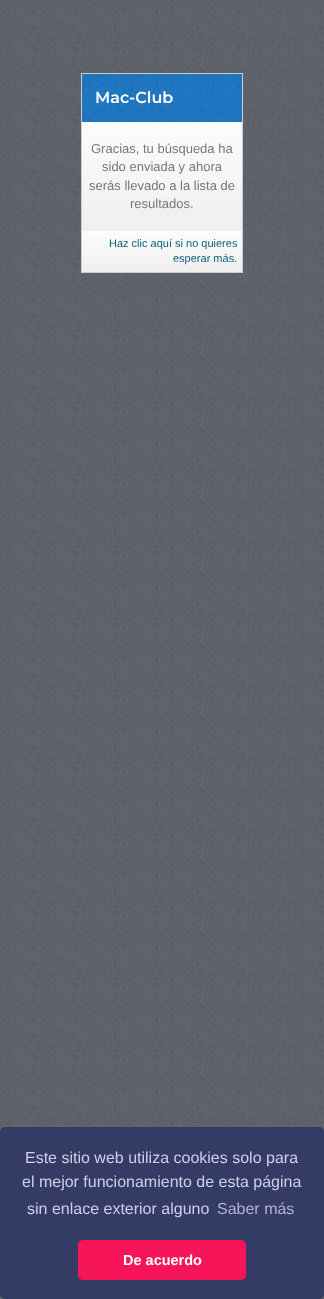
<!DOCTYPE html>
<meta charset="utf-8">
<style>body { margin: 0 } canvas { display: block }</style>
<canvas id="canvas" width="324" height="1299"></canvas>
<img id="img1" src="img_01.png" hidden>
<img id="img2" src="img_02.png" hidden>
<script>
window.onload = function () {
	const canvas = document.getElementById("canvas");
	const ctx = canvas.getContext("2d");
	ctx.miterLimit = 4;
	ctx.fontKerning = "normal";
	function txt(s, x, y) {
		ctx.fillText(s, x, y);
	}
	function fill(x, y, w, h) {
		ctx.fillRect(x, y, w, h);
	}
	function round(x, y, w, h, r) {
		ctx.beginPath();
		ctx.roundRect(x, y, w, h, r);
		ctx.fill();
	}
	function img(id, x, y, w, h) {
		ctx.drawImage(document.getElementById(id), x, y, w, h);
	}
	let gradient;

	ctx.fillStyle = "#666A73";
	fill(0, 0, 324, 1299);
	img("img1", 0, 0, 324, 1299);
	ctx.strokeStyle = "#CCCCCC";
	ctx.strokeRect(81.5, 73.5, 161, 199);
	ctx.fillStyle = "#227FCF";
	fill(82, 74, 160, 48);
	img("img2", 82, 74, 160, 48);
	gradient = ctx.createLinearGradient(162, 122, 162, 231);
	gradient.addColorStop(0, "#FCFCFC");
	gradient.addColorStop(1, "#EFEFEF");
	ctx.fillStyle = gradient;
	fill(82, 122, 160, 109);
	gradient = ctx.createLinearGradient(162, 231, 162, 272);
	gradient.addColorStop(0, "#FCFCFC");
	gradient.addColorStop(1, "#EFEFEF");
	ctx.fillStyle = gradient;
	fill(82, 231, 160, 41);
	ctx.fillStyle = "#343C66";
	round(0, 1127, 324, 172, 5);
	ctx.fillStyle = "#F71559";
	round(78, 1240, 168, 40, 5);
	ctx.font = "100 16px Montserrat";
	ctx.fillStyle = "#FFFFFF";
	txt("Mac-Club", 95, 103);
	ctx.font = "13px Liberation Sans";
	ctx.fillStyle = "#777777";
	txt("Gracias, tu búsqueda ha", 91, 153);
	txt("sido enviada y ahora", 102, 171);
	txt("serás llevado a la lista de", 89, 190);
	txt("resultados.", 130, 208);
	ctx.font = "11px Liberation Sans";
	ctx.fillStyle = "#0D5F7A";
	txt("Haz clic aquí si no quieres", 109, 247);
	txt("esperar más.", 173, 262);
	ctx.font = "16px Liberation Sans";
	ctx.fillStyle = "#CFCFE8";
	txt("Este sitio web utiliza cookies solo para", 25, 1163);
	txt("el mejor funcionamiento de esta página", 22, 1187);
	txt("sin enlace exterior alguno", 27, 1214);
	ctx.fillStyle = "#B0B2CE";
	txt("Saber más", 217, 1214);
	ctx.font = "bold 14.5px Liberation Sans";
	ctx.fillStyle = "#FFFFFF";
	txt("De acuerdo", 123, 1265);
};
</script>
